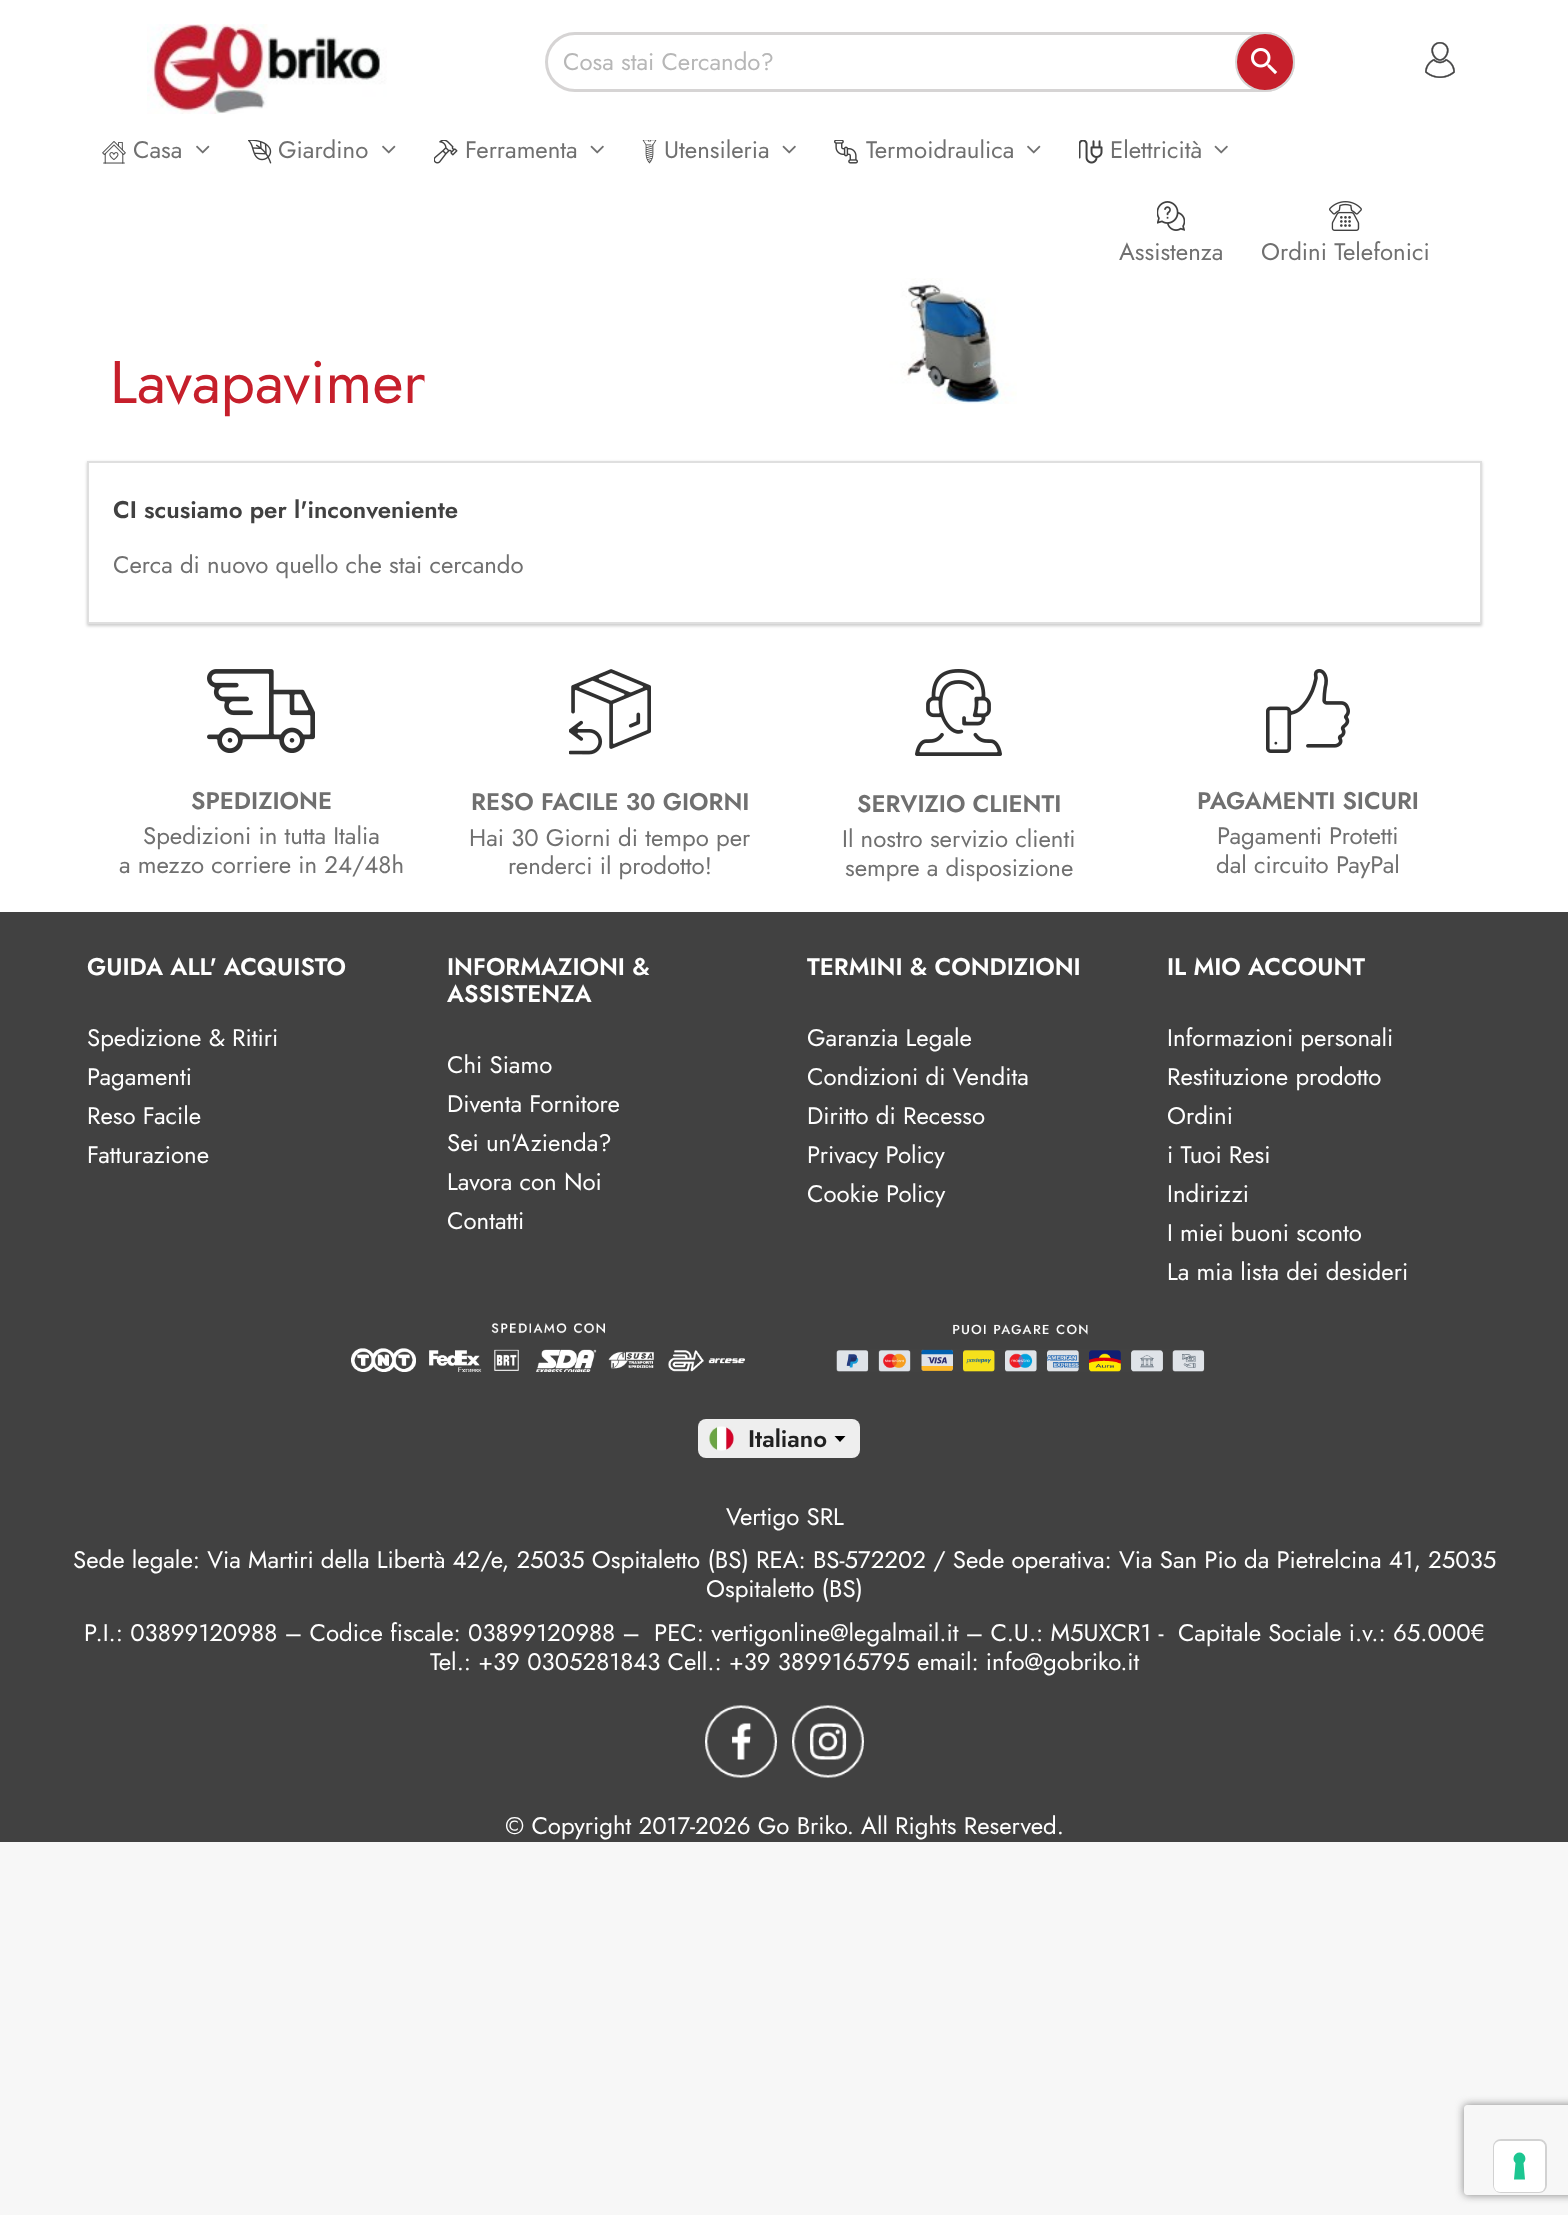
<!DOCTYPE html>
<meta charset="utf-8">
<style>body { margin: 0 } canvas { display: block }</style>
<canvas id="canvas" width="1568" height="2215"></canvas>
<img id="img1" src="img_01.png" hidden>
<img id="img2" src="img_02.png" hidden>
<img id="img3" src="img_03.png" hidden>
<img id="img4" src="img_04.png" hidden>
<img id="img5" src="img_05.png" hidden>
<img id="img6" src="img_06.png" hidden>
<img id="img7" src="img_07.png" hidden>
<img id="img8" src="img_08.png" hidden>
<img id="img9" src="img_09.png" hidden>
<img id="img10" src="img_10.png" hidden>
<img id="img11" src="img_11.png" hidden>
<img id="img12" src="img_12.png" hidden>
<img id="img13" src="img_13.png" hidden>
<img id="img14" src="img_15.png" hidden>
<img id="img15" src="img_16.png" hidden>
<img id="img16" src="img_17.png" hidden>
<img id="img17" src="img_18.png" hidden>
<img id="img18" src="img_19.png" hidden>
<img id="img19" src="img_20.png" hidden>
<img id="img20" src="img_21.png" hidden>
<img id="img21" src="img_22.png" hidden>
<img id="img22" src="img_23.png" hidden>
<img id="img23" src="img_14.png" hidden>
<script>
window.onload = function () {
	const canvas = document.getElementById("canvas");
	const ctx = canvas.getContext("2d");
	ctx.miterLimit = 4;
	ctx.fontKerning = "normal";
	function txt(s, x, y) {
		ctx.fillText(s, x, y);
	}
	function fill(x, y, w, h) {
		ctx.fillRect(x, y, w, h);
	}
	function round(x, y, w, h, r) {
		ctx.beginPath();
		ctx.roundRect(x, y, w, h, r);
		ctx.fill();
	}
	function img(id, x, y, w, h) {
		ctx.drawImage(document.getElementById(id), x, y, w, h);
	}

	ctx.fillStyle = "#F7F7F7";
	fill(0, 0, 1568, 2215);
	ctx.fillStyle = "#FFFFFF";
	fill(0, 0, 1568, 912);
	img("img1", 147, 24, 240, 90);
	ctx.beginPath();
	ctx.roundRect(546.5, 33.5, 747, 57, 28.5);
	ctx.strokeStyle = "#D6D4D4";
	ctx.lineWidth = 3;
	ctx.stroke();
	ctx.fillStyle = "#C61F2B";
	ctx.beginPath();
	ctx.arc(1265, 62, 29, 0, Math.PI * 2);
	ctx.fill();
	ctx.lineWidth = 2;
	ctx.stroke();
	img("img2", 1251, 48, 27, 27);
	img("img3", 1425, 42, 30, 36);
	img("img4", 102, 141, 24, 23);
	img("img5", 196, 145, 14, 9);
	img("img6", 248, 140, 24, 24);
	img("img5", 382, 145, 14, 9);
	img("img7", 434, 140, 24, 24);
	img("img8", 590, 145, 14, 9);
	img("img9", 642, 140, 15, 24);
	img("img8", 782, 145, 14, 9);
	img("img10", 834, 140, 24, 24);
	img("img5", 1027, 145, 14, 9);
	img("img11", 1079, 140, 24, 24);
	img("img8", 1214, 145, 14, 9);
	img("img12", 1157, 201, 28, 30);
	img("img13", 1329, 201, 33, 30);
	ctx.save();
	ctx.beginPath();
	ctx.moveTo(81, 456);
	ctx.lineTo(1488, 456);
	ctx.lineTo(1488, 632);
	ctx.lineTo(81, 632);
	ctx.closePath();
	ctx.moveTo(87, 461);
	ctx.lineTo(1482, 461);
	ctx.lineTo(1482, 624);
	ctx.lineTo(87, 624);
	ctx.closePath();
	ctx.clip("evenodd");
	ctx.fillStyle = "rgba(0, 0, 0, 0.2)";
	ctx.filter = "blur(1.5px)";
	ctx.beginPath();
	ctx.rect(87, 462, 1395, 164);
	ctx.fill();
	ctx.filter = "none";
	ctx.restore();
	ctx.strokeStyle = "#DFDFDF";
	ctx.strokeRect(88, 462, 1393, 161);
	img("img14", 207, 669, 108, 84);
	img("img15", 569, 669, 82, 86);
	img("img16", 915, 669, 87, 87);
	img("img17", 1266, 669, 84, 84);
	ctx.fillStyle = "#414141";
	fill(0, 912, 1568, 930);
	img("img18", 351, 1323, 394, 49);
	img("img19", 836, 1324, 369, 48);
	ctx.fillStyle = "#EEEEEE";
	round(698, 1419, 162, 39, 8);
	img("img20", 709, 1426, 25, 25);
	ctx.fillStyle = "#000000";
	ctx.beginPath();
	ctx.moveTo(834.5, 1436);
	ctx.lineTo(845.5, 1436);
	ctx.lineTo(840, 1442);
	ctx.closePath();
	ctx.fill();
	img("img21", 705, 1705, 72, 73);
	img("img22", 792, 1705, 72, 73);
	ctx.save();
	ctx.beginPath();
	ctx.moveTo(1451, 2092);
	ctx.lineTo(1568, 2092);
	ctx.lineTo(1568, 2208);
	ctx.lineTo(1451, 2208);
	ctx.closePath();
	ctx.moveTo(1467, 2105);
	ctx.lineTo(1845, 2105);
	ctx.bezierCurveTo(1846.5, 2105, 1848, 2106.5, 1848, 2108);
	ctx.lineTo(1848, 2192);
	ctx.bezierCurveTo(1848, 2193.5, 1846.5, 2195, 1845, 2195);
	ctx.lineTo(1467, 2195);
	ctx.bezierCurveTo(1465.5, 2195, 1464, 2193.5, 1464, 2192);
	ctx.lineTo(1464, 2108);
	ctx.bezierCurveTo(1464, 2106.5, 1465.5, 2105, 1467, 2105);
	ctx.closePath();
	ctx.clip("evenodd");
	ctx.fillStyle = "#808080";
	ctx.filter = "blur(4px)";
	ctx.beginPath();
	ctx.roundRect(1464, 2105, 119, 90, 3);
	ctx.fill();
	ctx.filter = "none";
	ctx.restore();
	ctx.beginPath();
	ctx.roundRect(1494, 2140, 52, 52, 7);
	ctx.strokeStyle = "#D2D2D2";
	ctx.stroke();
	ctx.fillStyle = "#FFFFFF";
	round(1494, 2141, 51, 51, 6);
	ctx.fillStyle = "#1CC691";
	ctx.beginPath();
	ctx.moveTo(1519.5, 2152.5);
	ctx.bezierCurveTo(1525, 2152.5, 1527.5, 2159.5, 1523.5, 2163);
	ctx.lineTo(1525, 2179.5);
	ctx.lineTo(1514, 2179.5);
	ctx.lineTo(1515.5, 2163);
	ctx.bezierCurveTo(1511.5, 2159.5, 1514, 2152.5, 1519.5, 2152.5);
	ctx.closePath();
	ctx.fill("evenodd");
	ctx.font = "24px Jost";
	ctx.fillStyle = "#B7B7B7";
	txt("Cosa stai Cercando?", 563, 70);
	ctx.fillStyle = "#707070";
	txt("Casa", 133, 158);
	txt("Giardino", 278, 158);
	txt("Ferramenta", 465, 158);
	txt("Utensileria", 664, 158);
	txt("Termoidraulica", 866, 158);
	txt("Elettricità", 1110, 158);
	txt("Assistenza", 1119, 260);
	txt("Ordini Telefonici", 1261, 260);
	ctx.font = "60px Jost";
	ctx.fillStyle = "#C61F2B";
	txt("Lavapavimen", 110, 403);
	img("img23", 424, 278, 593, 126);
	ctx.font = "600 24px Jost";
	ctx.fillStyle = "#414141";
	txt("CI scusiamo per l'inconveniente", 113, 518);
	ctx.font = "24px Jost";
	ctx.fillStyle = "#707070";
	txt("Cerca di nuovo quello che stai cercando", 113, 573);
	ctx.font = "600 24px Jost";
	txt("SPEDIZIONE", 191, 809);
	ctx.font = "24px Jost";
	txt("Spedizioni in tutta Italia", 143, 844);
	txt("a mezzo corriere in 24/48h", 119, 873);
	ctx.font = "600 24px Jost";
	txt("RESO FACILE 30 GIORNI", 471, 810);
	ctx.font = "24px Jost";
	txt("Hai 30 Giorni di tempo per", 469, 846);
	txt("renderci il prodotto!", 508, 874);
	ctx.font = "600 24px Jost";
	txt("SERVIZIO CLIENTI", 857, 812);
	ctx.font = "24px Jost";
	txt("Il nostro servizio clienti", 842, 847);
	txt("sempre a disposizione", 845, 876);
	ctx.font = "600 24px Jost";
	txt("PAGAMENTI SICURI", 1197, 809);
	ctx.font = "24px Jost";
	txt("Pagamenti Protetti", 1217, 844);
	txt("dal circuito PayPal", 1216, 873);
	ctx.font = "600 24px Jost";
	ctx.fillStyle = "#FFFFFF";
	txt("GUIDA ALL' ACQUISTO", 87, 975);
	ctx.font = "24px Jost";
	txt("Spedizione & Ritiri", 87, 1046);
	txt("Pagamenti", 87, 1085);
	txt("Reso Facile", 87, 1124);
	txt("Fatturazione", 87, 1163);
	ctx.font = "600 24px Jost";
	txt("INFORMAZIONI &", 447, 975);
	txt("ASSISTENZA", 447, 1002);
	ctx.font = "24px Jost";
	txt("Chi Siamo", 447, 1073);
	txt("Diventa Fornitore", 447, 1112);
	txt("Sei un'Azienda?", 447, 1151);
	txt("Lavora con Noi", 447, 1190);
	txt("Contatti", 447, 1229);
	ctx.font = "600 24px Jost";
	txt("TERMINI & CONDIZIONI", 807, 975);
	ctx.font = "24px Jost";
	txt("Garanzia Legale", 807, 1046);
	txt("Condizioni di Vendita", 807, 1085);
	txt("Diritto di Recesso", 807, 1124);
	txt("Privacy Policy", 807, 1163);
	txt("Cookie Policy", 807, 1202);
	ctx.font = "600 24px Jost";
	txt("IL MIO ACCOUNT", 1167, 975);
	ctx.font = "24px Jost";
	txt("Informazioni personali", 1167, 1046);
	txt("Restituzione prodotto", 1167, 1085);
	txt("Ordini", 1167, 1124);
	txt("i Tuoi Resi", 1167, 1163);
	txt("Indirizzi", 1167, 1202);
	txt("I miei buoni sconto", 1167, 1241);
	txt("La mia lista dei desideri", 1167, 1280);
	ctx.font = "600 24px Jost";
	ctx.fillStyle = "#212121";
	txt("Italiano", 748, 1447);
	ctx.font = "24px Jost";
	ctx.fillStyle = "#FFFFFF";
	txt("Vertigo SRL", 726, 1525);
	txt("Sede legale: Via Martiri della Libertà 42/e, 25035 Ospitaletto (BS) REA: BS-572202 / Sede operativa: Via San Pio da Pietrelcina 41, 25035", 73, 1568);
	txt("Ospitaletto (BS)", 706, 1597);
	txt("P.I.: 03899120988 – Codice fiscale: 03899120988 –", 84, 1641);
	txt("PEC: vertigonline@legalmail.it – C.U.: M5UXCR1 -  Capitale Sociale i.v.: 65.000€", 654, 1641);
	txt("Tel.: +39 0305281843 Cell.: +39 3899165795 email: info@gobriko.it", 430, 1670);
	txt("© Copyright 2017-2026 Go Briko. All Rights Reserved.", 505, 1834);
};
</script>
